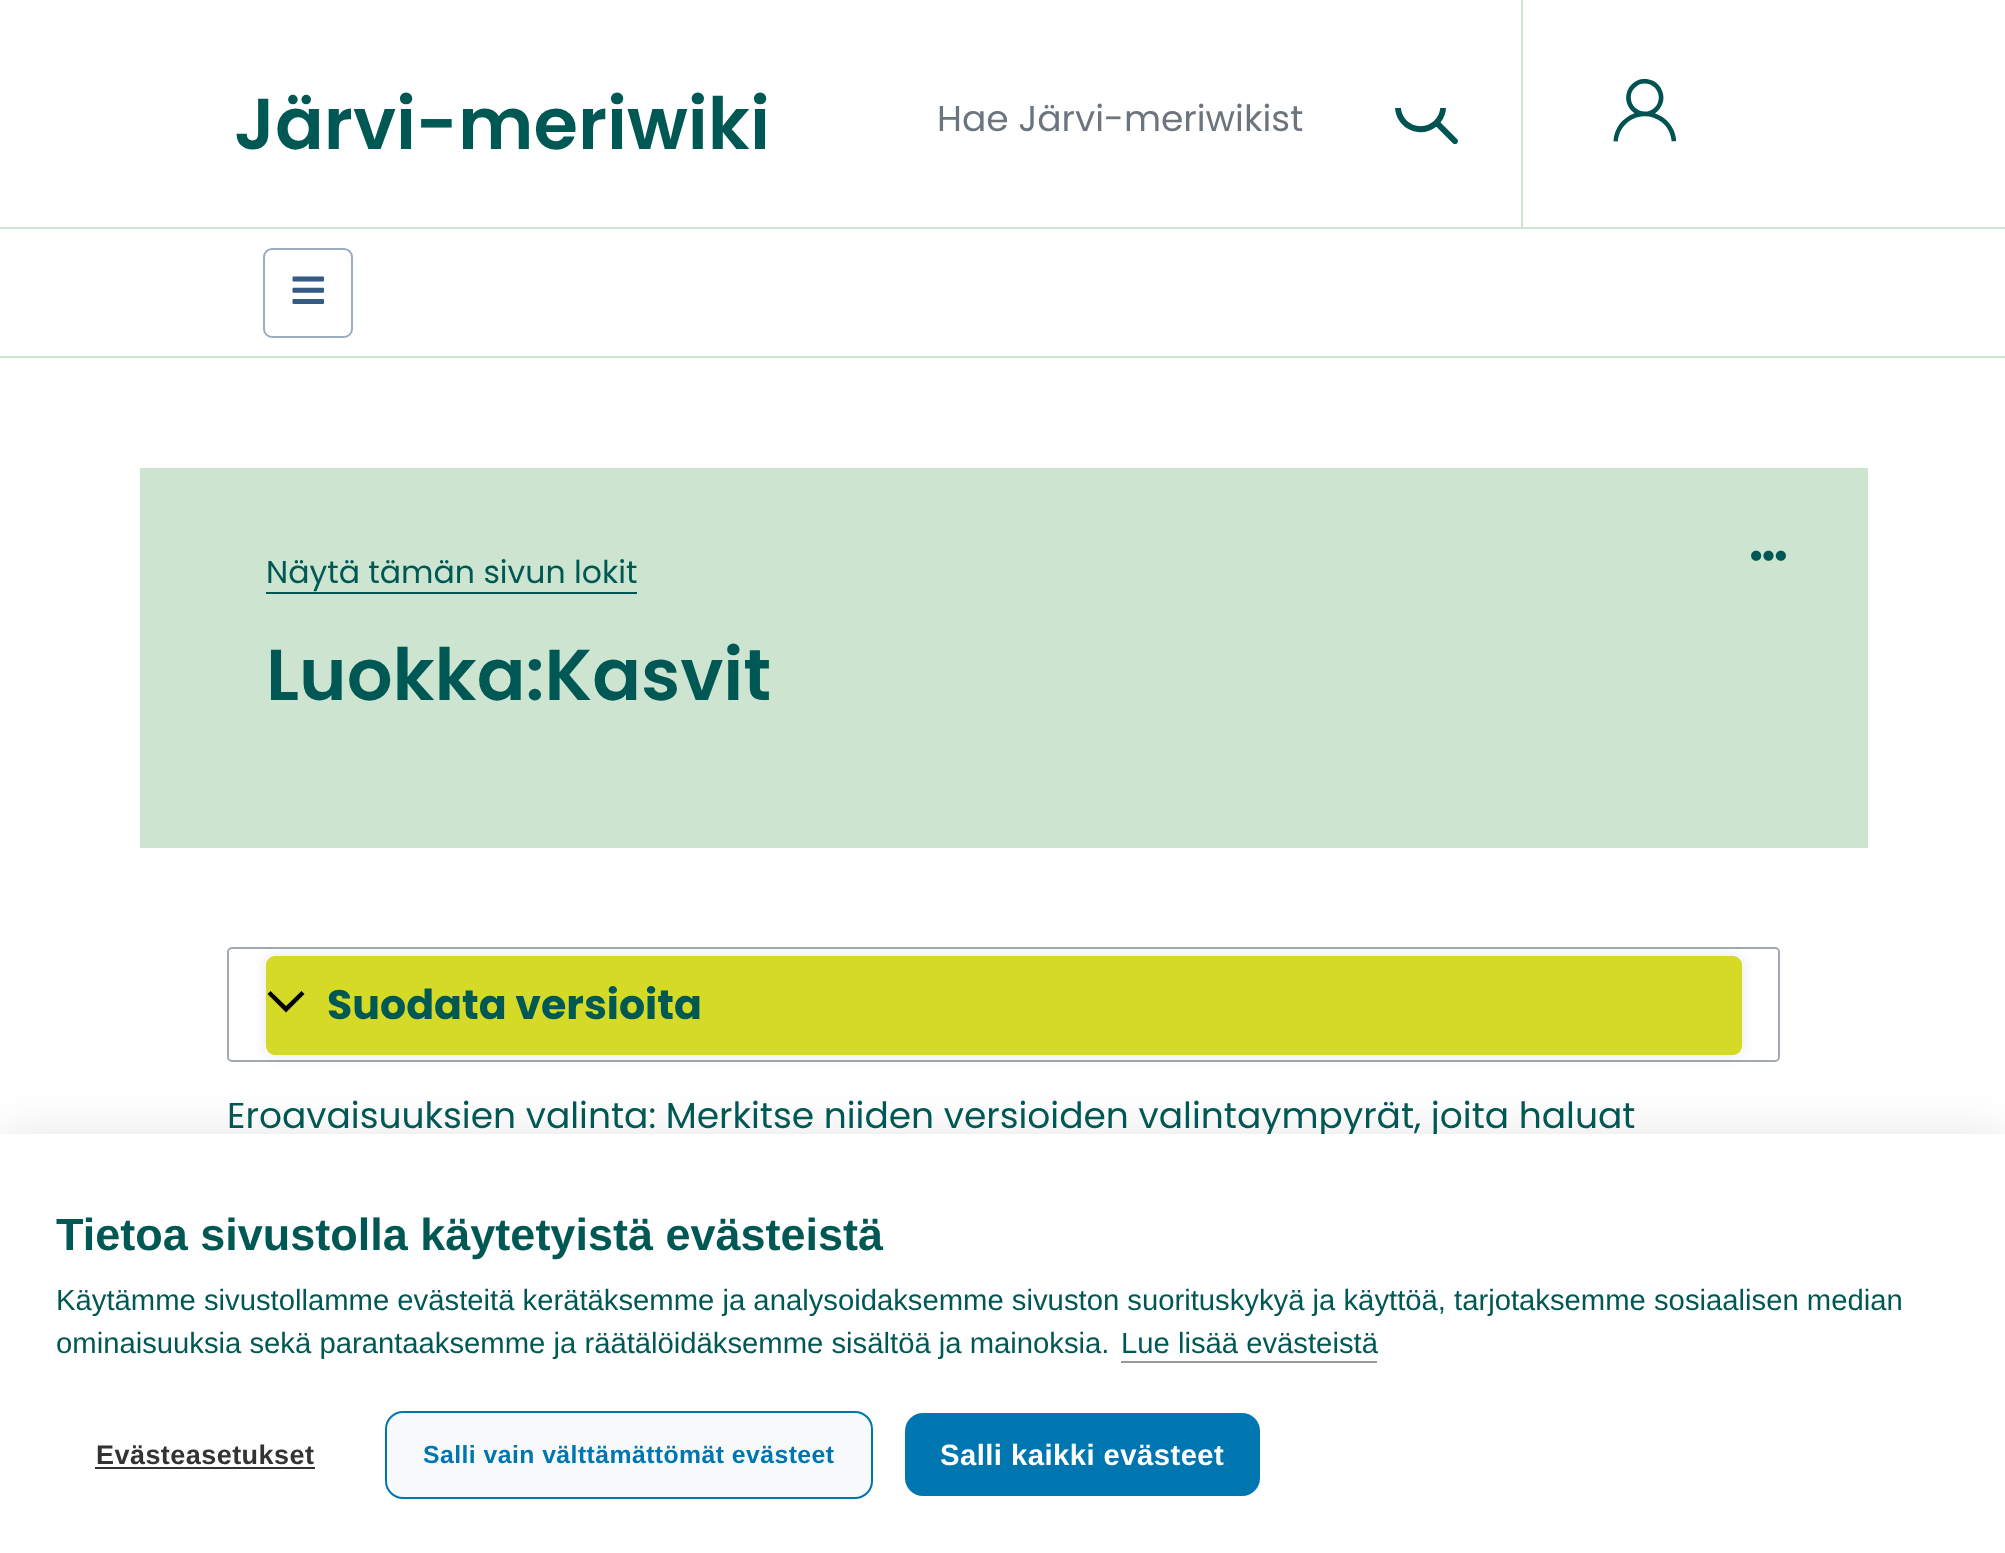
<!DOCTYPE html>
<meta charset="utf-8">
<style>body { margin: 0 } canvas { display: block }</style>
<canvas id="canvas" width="2005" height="1553"></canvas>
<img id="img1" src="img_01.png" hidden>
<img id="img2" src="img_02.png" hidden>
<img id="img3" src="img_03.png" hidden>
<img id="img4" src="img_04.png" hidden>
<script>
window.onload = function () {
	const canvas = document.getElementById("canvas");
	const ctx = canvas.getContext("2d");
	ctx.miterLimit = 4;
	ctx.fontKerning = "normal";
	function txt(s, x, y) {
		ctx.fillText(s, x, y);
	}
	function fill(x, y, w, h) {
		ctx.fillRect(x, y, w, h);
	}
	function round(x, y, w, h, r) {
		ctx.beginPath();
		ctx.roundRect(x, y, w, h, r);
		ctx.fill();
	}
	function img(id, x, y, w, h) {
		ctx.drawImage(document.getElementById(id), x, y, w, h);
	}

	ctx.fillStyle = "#FFFFFF";
	fill(0, 0, 2005, 1553);
	ctx.fillStyle = "#CCE4D0";
	fill(0, 227, 2005, 2);
	img("img1", 1395, 108, 63, 36);
	fill(1521, 0, 2, 227);
	img("img2", 1613, 79, 63, 63);
	ctx.beginPath();
	ctx.roundRect(264, 249, 88, 88, 8);
	ctx.strokeStyle = "#9AADC2";
	ctx.lineWidth = 2;
	ctx.stroke();
	img("img3", 292, 276, 32, 28);
	fill(0, 356, 2005, 2);
	fill(140, 468, 1728, 380);
	img("img4", 1751, 550, 35, 11);
	ctx.fillStyle = "#005854";
	fill(266, 592, 371, 2);
	ctx.beginPath();
	ctx.roundRect(228, 948, 1551, 113, 4);
	ctx.strokeStyle = "#A2A9B1";
	ctx.stroke();
	ctx.fillStyle = "rgba(0, 0, 0, 0.1)";
	ctx.filter = "blur(7px)";
	ctx.beginPath();
	ctx.roundRect(266, 956, 1476, 99, 9);
	ctx.fill();
	ctx.filter = "none";
	ctx.fillStyle = "#D5DA26";
	round(266, 956, 1476, 99, 9);
	ctx.fillStyle = "#000000";
	ctx.beginPath();
	ctx.moveTo(301.5, 991);
	ctx.lineTo(286, 1006);
	ctx.lineTo(270.5, 991);
	ctx.lineTo(267.5, 994);
	ctx.lineTo(286, 1012.5);
	ctx.lineTo(304.5, 994);
	ctx.closePath();
	ctx.fill();
	ctx.fillStyle = "rgba(0, 0, 0, 0.1)";
	ctx.filter = "blur(22.5px)";
	ctx.beginPath();
	ctx.rect(0, 1134, 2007, 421);
	ctx.fill();
	ctx.filter = "none";
	ctx.font = "600 72px Poppins";
	ctx.fillStyle = "#005854";
	txt("Järvi-meriwiki", 234, 149);
	ctx.font = "36px Poppins";
	ctx.fillStyle = "#6C757D";
	txt("Hae Järvi-meriwikist", 937, 131);
	ctx.font = "31.5px Poppins";
	ctx.fillStyle = "#005854";
	txt("Näytä tämän sivun lokit", 266, 583);
	ctx.font = "600 72px Poppins";
	txt("Luokka:Kasvit", 266, 700);
	ctx.font = "bold 41.1px Poppins";
	txt("Suodata versioita", 327, 1019);
	ctx.font = "36px Poppins";
	txt("Eroavaisuuksien valinta: Merkitse niiden versioiden valintaympyrät, joita haluat", 227, 1128);
	ctx.fillStyle = "#FFFFFF";
	fill(0, 1134, 2005, 419);
	ctx.font = "bold 45px Liberation Sans";
	ctx.fillStyle = "#005854";
	txt("Tietoa sivustolla käytetyistä evästeistä", 56, 1250);
	ctx.font = "29.25px Liberation Sans";
	txt("Käytämme sivustollamme evästeitä kerätäksemme ja analysoidaksemme sivuston suorituskykyä ja käyttöä, tarjotaksemme sosiaalisen median", 56, 1310);
	txt("ominaisuuksia sekä parantaaksemme ja räätälöidäksemme sisältöä ja mainoksia.", 56, 1353);
	txt("Lue lisää evästeistä", 1121, 1353);
	ctx.fillStyle = "#999999";
	fill(1121, 1361, 256, 2);
	ctx.letterSpacing = "0.45px";
	ctx.font = "bold 27px Liberation Sans";
	ctx.fillStyle = "#333333";
	txt("Evästeasetukset", 96, 1464);
	fill(95, 1467, 220, 2);
	ctx.fillStyle = "#F8F9FA";
	ctx.beginPath();
	ctx.roundRect(386, 1412, 486, 86, 17);
	ctx.fill();
	ctx.strokeStyle = "#0076B0";
	ctx.stroke();
	ctx.font = "bold 24.75px Liberation Sans";
	ctx.fillStyle = "#0076B0";
	txt("Salli vain välttämättömät evästeet", 423, 1463);
	round(905, 1413, 355, 83, 18);
	ctx.font = "bold 29.25px Liberation Sans";
	ctx.fillStyle = "#FFFFFF";
	txt("Salli kaikki evästeet", 940, 1465);
};
</script>
